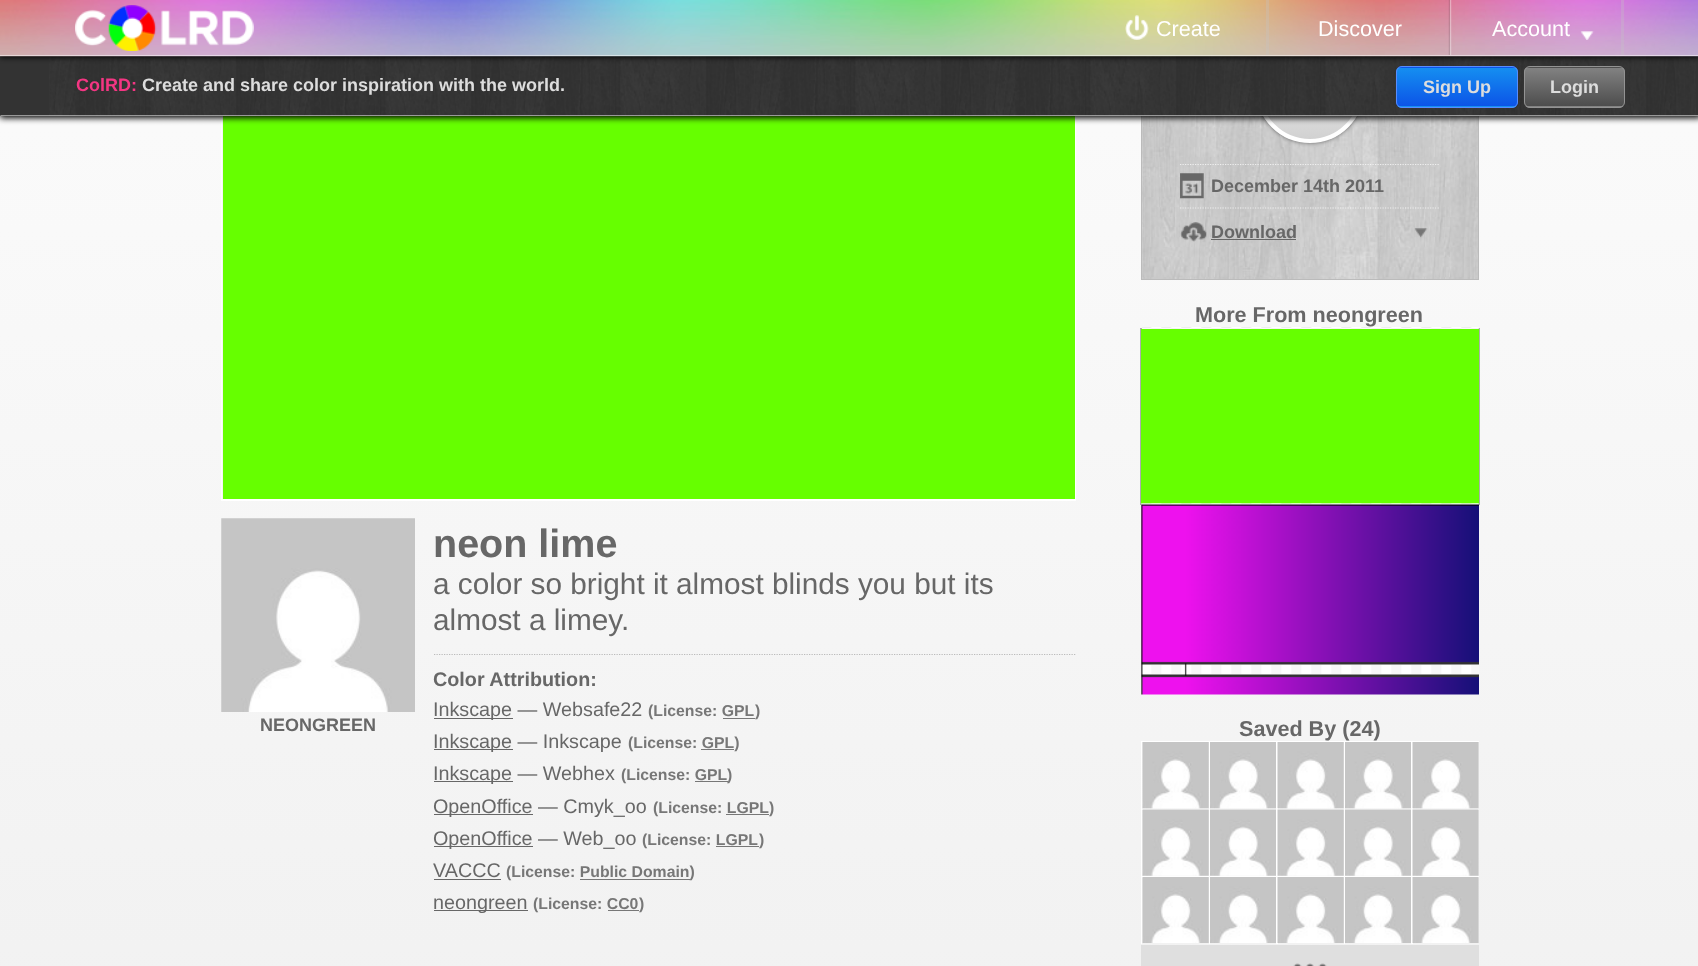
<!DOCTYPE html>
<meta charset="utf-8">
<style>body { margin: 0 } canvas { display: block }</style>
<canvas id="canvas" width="1698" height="966"></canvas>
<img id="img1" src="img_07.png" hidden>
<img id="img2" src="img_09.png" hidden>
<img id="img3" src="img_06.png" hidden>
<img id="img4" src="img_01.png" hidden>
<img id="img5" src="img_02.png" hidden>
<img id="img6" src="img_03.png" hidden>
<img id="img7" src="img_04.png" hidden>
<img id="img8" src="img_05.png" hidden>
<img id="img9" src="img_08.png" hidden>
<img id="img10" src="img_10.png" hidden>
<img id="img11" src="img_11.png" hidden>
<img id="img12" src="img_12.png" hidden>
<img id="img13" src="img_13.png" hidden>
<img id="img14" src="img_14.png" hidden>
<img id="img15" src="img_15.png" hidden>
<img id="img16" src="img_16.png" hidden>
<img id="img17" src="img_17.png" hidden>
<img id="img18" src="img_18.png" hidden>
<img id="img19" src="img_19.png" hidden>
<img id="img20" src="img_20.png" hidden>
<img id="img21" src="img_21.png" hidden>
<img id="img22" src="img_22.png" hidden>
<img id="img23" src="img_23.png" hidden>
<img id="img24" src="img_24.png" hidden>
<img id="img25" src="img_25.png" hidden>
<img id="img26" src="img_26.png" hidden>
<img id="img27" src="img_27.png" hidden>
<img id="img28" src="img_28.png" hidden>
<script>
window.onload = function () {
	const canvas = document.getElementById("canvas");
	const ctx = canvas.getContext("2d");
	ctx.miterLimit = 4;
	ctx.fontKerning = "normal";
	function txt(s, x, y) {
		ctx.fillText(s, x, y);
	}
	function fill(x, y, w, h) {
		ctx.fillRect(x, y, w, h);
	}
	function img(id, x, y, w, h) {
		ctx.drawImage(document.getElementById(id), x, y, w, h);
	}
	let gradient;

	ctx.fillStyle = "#FFFFFF";
	fill(0, 0, 1698, 966);
	gradient = ctx.createLinearGradient(849, -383, 849, 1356);
	gradient.addColorStop(0, "#FFFFFF");
	gradient.addColorStop(1, "#EEEEEE");
	ctx.fillStyle = gradient;
	fill(0, 116, 1698, 850);
	ctx.strokeStyle = "#FFFFFF";
	ctx.strokeRect(221.5, -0.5, 854, 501);
	ctx.fillStyle = "rgba(0, 0, 0, 0.3)";
	ctx.filter = "blur(0.5px)";
	ctx.beginPath();
	ctx.rect(221, -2, 855, 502);
	ctx.fill();
	ctx.filter = "none";
	img("img1", 222, 116, 1, 383);
	ctx.strokeRect(221.5, -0.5, 854, 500);
	ctx.fillStyle = "#66FF00";
	fill(223, 116, 852, 383);
	img("img2", 1142, 116, 336, 163);
	ctx.strokeStyle = "#BBBBBB";
	ctx.strokeRect(1141.5, -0.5, 337, 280);
	ctx.fillStyle = "rgba(0, 0, 0, 0.5)";
	ctx.filter = "blur(2px)";
	ctx.beginPath();
	ctx.roundRect(1256, 35, 108, 108, 54);
	ctx.fill();
	ctx.filter = "none";
	ctx.save();
	ctx.beginPath();
	ctx.roundRect(1256, 35, 108, 108, 54);
	ctx.clip();
	gradient = ctx.createLinearGradient(1310, 39, 1310, 139);
	gradient.addColorStop(0, "#FFFFFF");
	gradient.addColorStop(1, "#D1D1D1");
	ctx.fillStyle = gradient;
	fill(1263, 116, 94, 23);
	ctx.restore();
	ctx.beginPath();
	ctx.arc(1310, 89, 52, 0, Math.PI * 2);
	ctx.strokeStyle = "#FFFFFF";
	ctx.lineWidth = 4;
	ctx.stroke();
	ctx.fillStyle = "#000000";
	ctx.filter = "blur(3px)";
	ctx.beginPath();
	ctx.rect(0, 58, 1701, 60);
	ctx.fill();
	ctx.filter = "none";
	ctx.fillStyle = "#333333";
	fill(0, 56, 1698, 60);
	img("img3", 49, 56, 1647, 60);
	ctx.save();
	ctx.beginPath();
	ctx.roundRect(1396, 66, 122, 42, 6);
	ctx.clip();
	gradient = ctx.createLinearGradient(1457, 29, 1457, 68);
	gradient.addColorStop(0, "#1590F1");
	gradient.addColorStop(1, "#0C54E7");
	ctx.fillStyle = gradient;
	fill(1396, 66, 122, 2);
	gradient = ctx.createLinearGradient(1457, 67, 1457, 106);
	gradient.addColorStop(0, "#1590F1");
	gradient.addColorStop(1, "#0C54E7");
	ctx.fillStyle = gradient;
	fill(1396, 68, 122, 38);
	gradient = ctx.createLinearGradient(1457, 106, 1457, 145);
	gradient.addColorStop(0, "#1590F1");
	gradient.addColorStop(1, "#0C54E7");
	ctx.fillStyle = gradient;
	fill(1396, 106, 122, 2);
	ctx.restore();
	ctx.beginPath();
	ctx.roundRect(1396.5, 66.5, 121, 41, 5.5);
	ctx.strokeStyle = "#588DFF";
	ctx.lineWidth = 1;
	ctx.stroke();
	ctx.save();
	ctx.beginPath();
	ctx.roundRect(1524, 66, 101, 42, 6);
	ctx.clip();
	gradient = ctx.createLinearGradient(1574, 29, 1574, 68);
	gradient.addColorStop(0, "#838383");
	gradient.addColorStop(1, "#4D4D4D");
	ctx.fillStyle = gradient;
	fill(1524, 66, 101, 2);
	gradient = ctx.createLinearGradient(1574, 67, 1574, 106);
	gradient.addColorStop(0, "#838383");
	gradient.addColorStop(1, "#4D4D4D");
	ctx.fillStyle = gradient;
	fill(1524, 68, 101, 38);
	gradient = ctx.createLinearGradient(1574, 106, 1574, 145);
	gradient.addColorStop(0, "#838383");
	gradient.addColorStop(1, "#4D4D4D");
	ctx.fillStyle = gradient;
	fill(1524, 106, 101, 2);
	ctx.restore();
	ctx.beginPath();
	ctx.roundRect(1524.5, 66.5, 100, 41, 5.5);
	ctx.strokeStyle = "#939393";
	ctx.stroke();
	ctx.fillStyle = "rgba(0, 0, 0, 0.8)";
	ctx.filter = "blur(2.5px)";
	ctx.beginPath();
	ctx.rect(0, 1, 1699, 57);
	ctx.fill();
	ctx.filter = "none";
	img("img4", 0, 0, 1698, 57);
	ctx.fillStyle = "rgba(255, 255, 255, 0.5)";
	fill(0, 55, 1698, 1);
	img("img5", 75, 5, 179, 46);
	img("img6", 1125, 15, 24, 25);
	ctx.fillStyle = "rgba(196, 196, 196, 0.29)";
	fill(1266, 0, 3, 55);
	img("img7", 1448, 0, 4, 55);
	img("img8", 1580, 31, 14, 9);
	fill(1621, 0, 3, 55);
	ctx.fillStyle = "rgba(255, 255, 255, 0.5)";
	ctx.beginPath();
	ctx.moveTo(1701, 116);
	ctx.lineTo(0, 116);
	ctx.lineTo(1, 115);
	ctx.lineTo(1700, 115);
	ctx.closePath();
	ctx.fill();
	img("img9", 221, 518, 194, 194);
	ctx.beginPath();
	ctx.moveTo(434, 654.5);
	ctx.lineTo(1076, 654.5);
	ctx.strokeStyle = "#BBBBBB";
	ctx.lineWidth = 1.2;
	ctx.setLineDash([1.25, 1.25]);
	ctx.stroke();
	ctx.fillStyle = "#676767";
	fill(434, 718, 79, 1);
	ctx.fillStyle = "#777777";
	fill(723, 718, 32, 1);
	ctx.fillStyle = "#676767";
	fill(434, 749, 79, 1);
	ctx.fillStyle = "#777777";
	fill(701, 749, 33, 1);
	ctx.fillStyle = "#676767";
	fill(434, 781, 79, 1);
	ctx.fillStyle = "#777777";
	fill(695, 781, 33, 1);
	ctx.fillStyle = "#676767";
	fill(434, 814, 99, 1);
	ctx.fillStyle = "#777777";
	fill(726, 814, 43, 1);
	ctx.fillStyle = "#676767";
	fill(434, 846, 99, 1);
	ctx.fillStyle = "#777777";
	fill(716, 846, 43, 1);
	ctx.fillStyle = "#676767";
	fill(434, 879, 67, 1);
	ctx.fillStyle = "#777777";
	fill(580, 879, 110, 1);
	ctx.fillStyle = "#676767";
	fill(434, 910, 94, 1);
	ctx.fillStyle = "#777777";
	fill(608, 910, 31, 1);
	img("img10", 1180, 173, 24, 26);
	ctx.beginPath();
	ctx.moveTo(1180, 164.5);
	ctx.lineTo(1440, 164.5);
	ctx.strokeStyle = "rgba(255, 255, 255, 0.7)";
	ctx.stroke();
	img("img11", 1180, 222, 27, 20);
	ctx.beginPath();
	ctx.moveTo(1180, 208);
	ctx.lineTo(1440, 208);
	ctx.stroke();
	img("img12", 1414, 228, 14, 10);
	ctx.fillStyle = "#676767";
	fill(1211, 239, 85, 1);
	ctx.fillStyle = "rgba(0, 0, 0, 0.3)";
	ctx.filter = "blur(0.5px)";
	ctx.beginPath();
	ctx.rect(1140, 328, 340, 177);
	ctx.fill();
	ctx.filter = "none";
	img("img13", 1142, 327, 337, 178);
	ctx.fillStyle = "#66FF00";
	fill(1141, 329, 338, 175);
	img("img14", 1141, 503, 338, 191);
	img("img15", 1141, 504, 338, 191);
	ctx.strokeStyle = "#FFFFFF";
	ctx.lineWidth = 1;
	ctx.setLineDash([]);
	ctx.strokeRect(1141.5, 741.5, 68, 68);
	img("img16", 1142, 742, 67, 67);
	ctx.strokeRect(1209.5, 741.5, 68, 68);
	img("img17", 1210, 742, 66, 67);
	ctx.strokeRect(1276.5, 741.5, 68, 68);
	img("img18", 1277, 742, 67, 67);
	ctx.strokeRect(1344.5, 741.5, 68, 68);
	img("img17", 1345, 742, 66, 67);
	ctx.save();
	ctx.beginPath();
	ctx.rect(1141, 741, 338, 203);
	ctx.clip();
	ctx.strokeRect(1411.5, 741.5, 68, 68);
	ctx.restore();
	img("img19", 1412, 742, 67, 67);
	ctx.strokeRect(1141.5, 809.5, 68, 68);
	img("img20", 1142, 809, 67, 67);
	ctx.strokeRect(1209.5, 809.5, 68, 68);
	img("img21", 1210, 809, 66, 67);
	ctx.strokeRect(1276.5, 809.5, 68, 68);
	img("img22", 1277, 809, 67, 67);
	ctx.strokeRect(1344.5, 809.5, 68, 68);
	img("img21", 1345, 809, 66, 67);
	ctx.save();
	ctx.beginPath();
	ctx.rect(1141, 741, 338, 203);
	ctx.clip();
	ctx.strokeRect(1411.5, 809.5, 68, 68);
	ctx.restore();
	img("img23", 1412, 809, 67, 67);
	ctx.save();
	ctx.beginPath();
	ctx.rect(1141, 741, 338, 203);
	ctx.clip();
	ctx.strokeRect(1141.5, 876.5, 68, 68);
	ctx.restore();
	img("img24", 1142, 877, 67, 66);
	ctx.save();
	ctx.beginPath();
	ctx.rect(1141, 741, 338, 203);
	ctx.clip();
	ctx.strokeRect(1209.5, 876.5, 68, 68);
	ctx.restore();
	img("img25", 1210, 877, 66, 66);
	ctx.save();
	ctx.beginPath();
	ctx.rect(1141, 741, 338, 203);
	ctx.clip();
	ctx.strokeRect(1276.5, 876.5, 68, 68);
	ctx.restore();
	img("img26", 1277, 877, 67, 66);
	ctx.save();
	ctx.beginPath();
	ctx.rect(1141, 741, 338, 203);
	ctx.clip();
	ctx.strokeRect(1344.5, 876.5, 68, 68);
	ctx.restore();
	img("img25", 1345, 877, 66, 66);
	ctx.save();
	ctx.beginPath();
	ctx.rect(1141, 741, 338, 203);
	ctx.clip();
	ctx.strokeRect(1411.5, 876.5, 68, 68);
	ctx.restore();
	img("img27", 1412, 877, 67, 66);
	ctx.fillStyle = "#DFDFDF";
	fill(1141, 945, 338, 21);
	img("img28", 1293, 963, 34, 3);
	ctx.font = "21.6px Liberation Sans";
	ctx.fillStyle = "#FFFFFF";
	txt("Create", 1156, 36);
	txt("Discover", 1318, 36);
	txt("Account", 1492, 36);
	ctx.font = "bold 18px Liberation Sans";
	ctx.fillStyle = "#F43683";
	txt("ColRD:", 76, 91);
	ctx.fillStyle = "#DDDDDD";
	txt("Create and share color inspiration with the world.", 142, 91);
	txt("Sign Up", 1423, 93);
	txt("Login", 1550, 93);
	ctx.fillStyle = "#676767";
	txt("NEONGREEN", 260, 731);
	ctx.font = "bold 39.5px Liberation Sans";
	txt("neon lime", 433, 557);
	ctx.font = "29.75px Liberation Sans";
	txt("a color so bright it almost blinds you but its", 433, 594);
	txt("almost a limey.", 433, 630);
	ctx.font = "bold 19.75px Liberation Sans";
	txt("Color Attribution:", 433, 686);
	ctx.font = "19.75px Liberation Sans";
	txt("Inkscape — Websafe22", 433, 716);
	ctx.font = "bold 15.8px Liberation Sans";
	ctx.fillStyle = "#777777";
	txt("(License: GPL", 648, 716);
	txt(")", 755, 716);
	ctx.font = "19.75px Liberation Sans";
	ctx.fillStyle = "#676767";
	txt("Inkscape — Inkscape", 433, 748);
	ctx.font = "bold 15.8px Liberation Sans";
	ctx.fillStyle = "#777777";
	txt("(License: GPL)", 628, 748);
	ctx.font = "19.75px Liberation Sans";
	ctx.fillStyle = "#676767";
	txt("Inkscape — Webhex", 433, 780);
	ctx.font = "bold 15.8px Liberation Sans";
	ctx.fillStyle = "#777777";
	txt("(License: GPL", 621, 780);
	txt(")", 727, 780);
	ctx.font = "19.75px Liberation Sans";
	ctx.fillStyle = "#676767";
	txt("OpenOffice — Cmyk_oo", 433, 813);
	ctx.font = "bold 15.8px Liberation Sans";
	ctx.fillStyle = "#777777";
	txt("(License: LGPL", 653, 813);
	txt(")", 769, 813);
	ctx.font = "19.75px Liberation Sans";
	ctx.fillStyle = "#676767";
	txt("OpenOffice — Web_oo", 433, 845);
	ctx.font = "bold 15.8px Liberation Sans";
	ctx.fillStyle = "#777777";
	txt("(License: LGPL", 642, 845);
	txt(")", 759, 845);
	ctx.font = "19.75px Liberation Sans";
	ctx.fillStyle = "#676767";
	txt("VACCC", 433, 877);
	ctx.font = "bold 15.8px Liberation Sans";
	ctx.fillStyle = "#777777";
	txt("(License: Public Domain)", 506, 877);
	ctx.font = "19.75px Liberation Sans";
	ctx.fillStyle = "#676767";
	txt("neongreen", 433, 909);
	ctx.font = "bold 15.8px Liberation Sans";
	ctx.fillStyle = "#777777";
	txt("(License: CC0", 533, 909);
	txt(")", 639, 909);
	ctx.font = "bold 18px Liberation Sans";
	ctx.fillStyle = "#676767";
	txt("December 14th 2011", 1211, 192);
	txt("Download", 1211, 238);
	ctx.font = "bold 21.6px Liberation Sans";
	txt("More From neongreen", 1195, 322);
	txt("Saved By (24)", 1239, 736);
};
</script>
